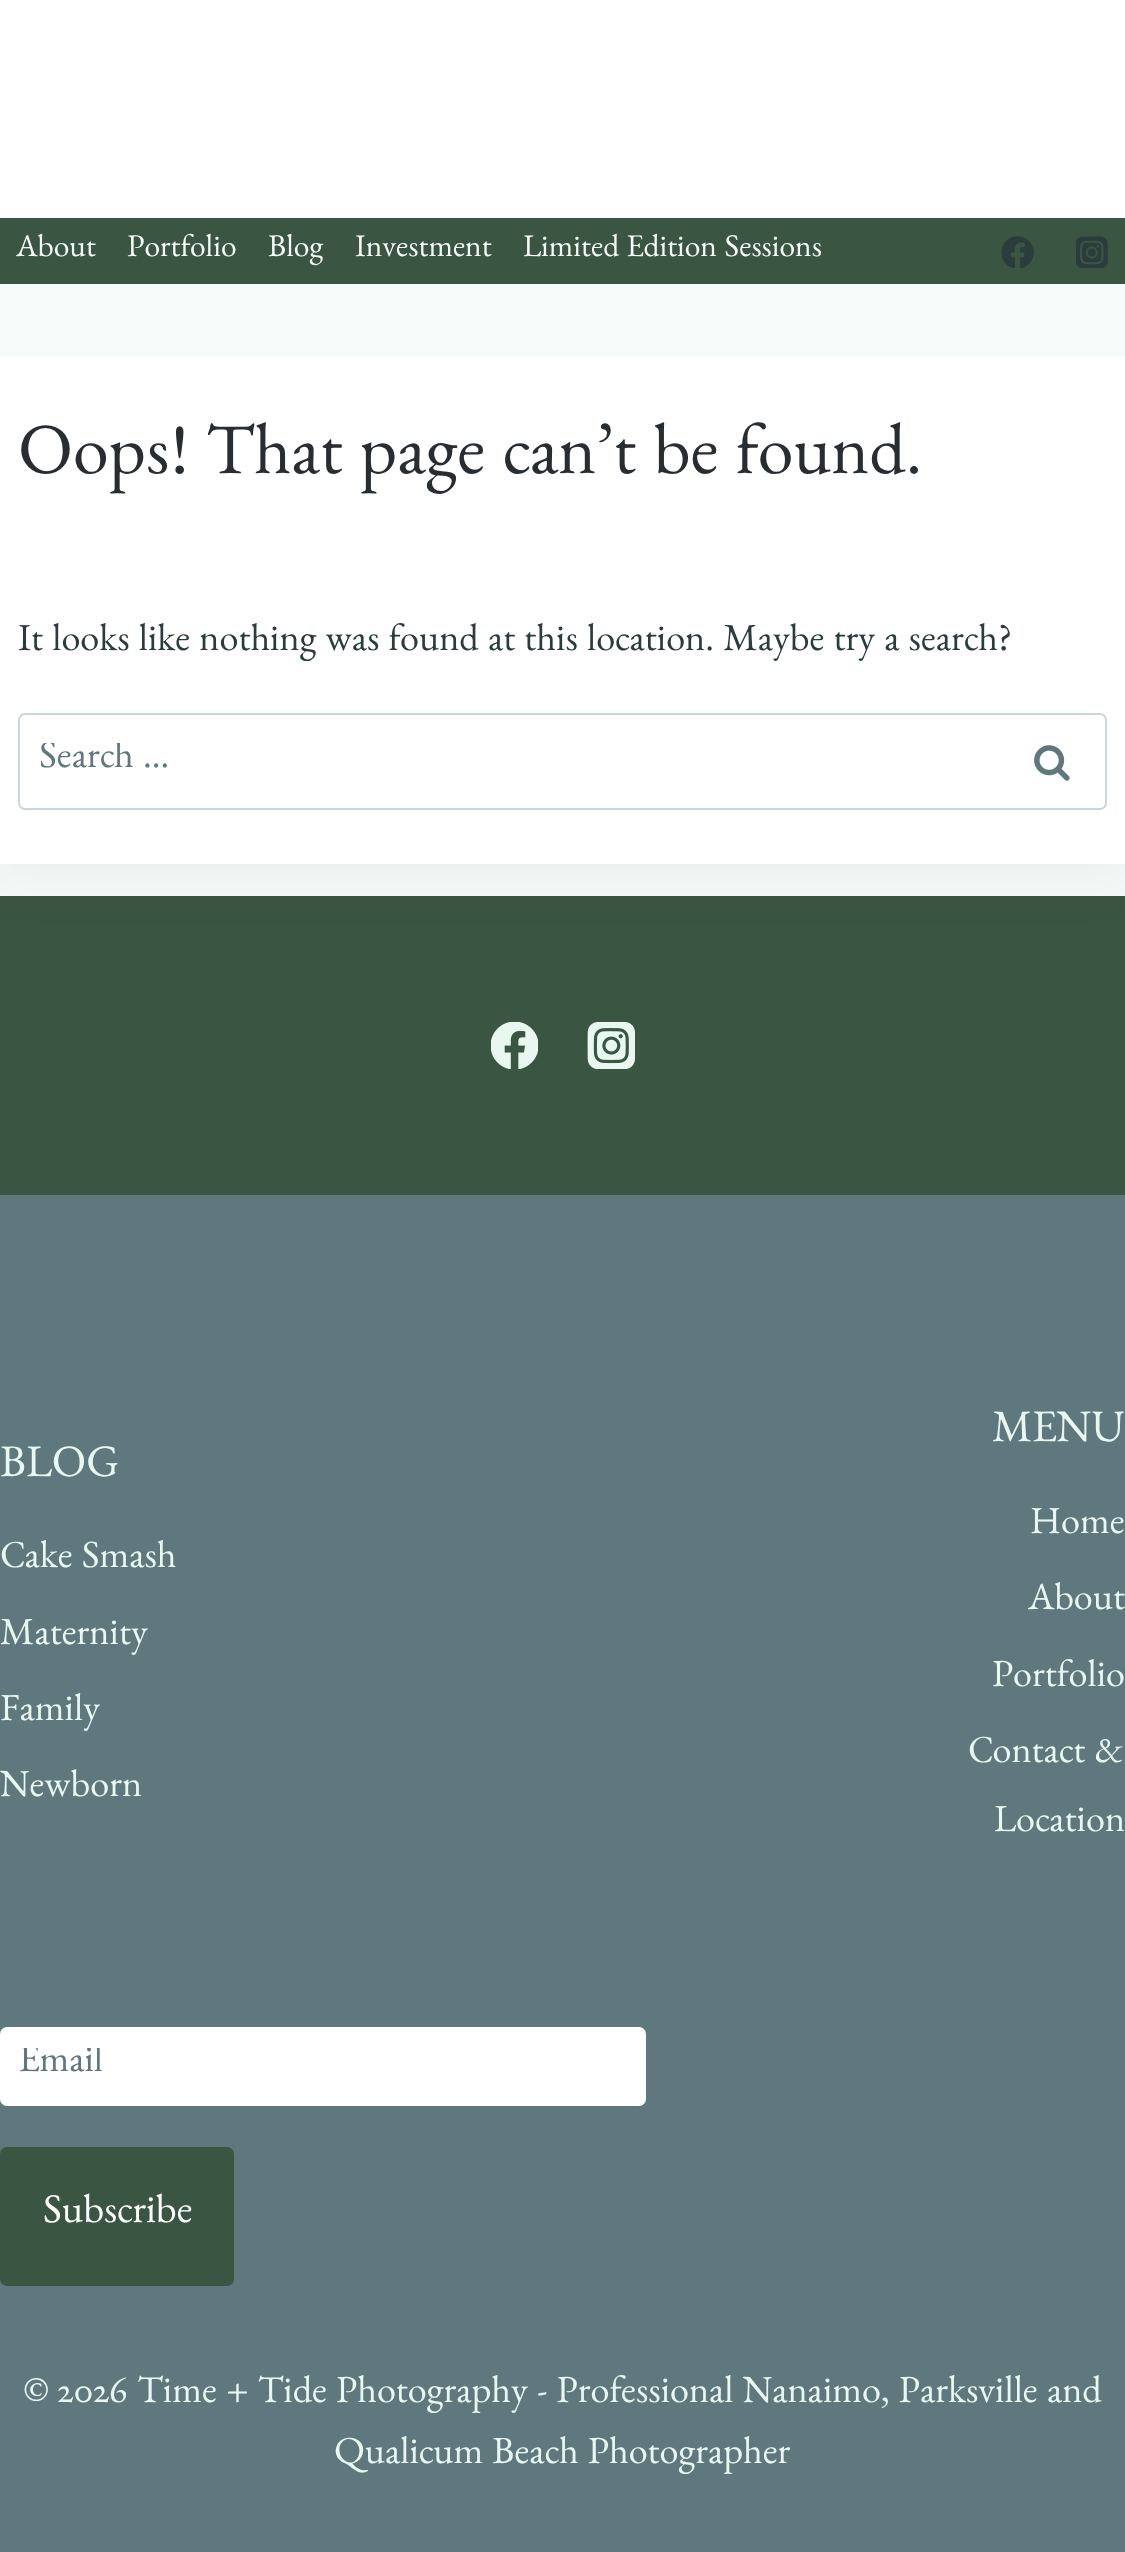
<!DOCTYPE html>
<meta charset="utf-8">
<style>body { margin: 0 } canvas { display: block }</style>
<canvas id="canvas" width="1125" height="2552"></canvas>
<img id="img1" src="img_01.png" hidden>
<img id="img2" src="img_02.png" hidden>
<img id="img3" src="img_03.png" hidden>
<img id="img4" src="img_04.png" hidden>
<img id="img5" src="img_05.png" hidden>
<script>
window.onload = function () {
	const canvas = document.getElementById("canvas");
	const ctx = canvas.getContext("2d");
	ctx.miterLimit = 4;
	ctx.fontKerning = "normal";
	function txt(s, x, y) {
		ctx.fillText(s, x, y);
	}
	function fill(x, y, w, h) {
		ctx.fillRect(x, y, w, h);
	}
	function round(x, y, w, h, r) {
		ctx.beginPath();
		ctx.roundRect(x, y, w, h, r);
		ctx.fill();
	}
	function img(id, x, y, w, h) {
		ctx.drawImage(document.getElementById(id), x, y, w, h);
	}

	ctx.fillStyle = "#F6FAF9";
	fill(0, 0, 1125, 2552);
	ctx.fillStyle = "#FFFFFF";
	fill(0, 0, 1125, 218);
	ctx.fillStyle = "#3A5541";
	fill(0, 218, 1125, 66);
	img("img1", 1001, 236, 33, 32);
	img("img2", 1076, 236, 32, 32);
	fill(0, 896, 1125, 299);
	ctx.fillStyle = "rgba(0, 0, 0, 0.05)";
	ctx.filter = "blur(28px)";
	ctx.beginPath();
	ctx.rect(-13, 412, 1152, 463);
	ctx.fill();
	ctx.filter = "none";
	ctx.fillStyle = "#FFFFFF";
	fill(0, 356, 1125, 508);
	ctx.beginPath();
	ctx.roundRect(19, 714, 1087, 95, 6);
	ctx.strokeStyle = "#CBD5E0";
	ctx.lineWidth = 2;
	ctx.stroke();
	img("img3", 1034, 745, 36, 36);
	ctx.fillStyle = "#5F787E";
	fill(0, 1195, 1125, 1357);
	img("img4", 491, 1022, 47, 47);
	img("img5", 587, 1022, 48, 47);
	ctx.fillStyle = "#FFFFFF";
	round(0, 2027, 646, 79, 7);
	ctx.fillStyle = "#3A5541";
	round(0, 2147, 234, 139, 7);
	ctx.font = "31.5px Benne";
	ctx.fillStyle = "#F6FAF9";
	txt("About", 16, 256);
	txt("Portfolio", 127, 256);
	txt("Blog", 268, 256);
	txt("Investment", 355, 256);
	txt("Limited Edition Sessions", 523, 256);
	ctx.font = "72px Benne";
	ctx.fillStyle = "#282D32";
	txt("Oops! That page can’t be found.", 18, 473);
	ctx.font = "38.25px Benne";
	ctx.fillStyle = "#2A3C3C";
	txt("It looks like nothing was found at this location. Maybe try a search?", 18, 650);
	ctx.save();
	ctx.beginPath();
	ctx.rect(41, 743, 893, 38);
	ctx.clip();
	ctx.fillStyle = "#5F787E";
	txt("Search …", 39, 767);
	ctx.restore();
	ctx.font = "45px Benne";
	ctx.fillStyle = "#E8F8F1";
	txt("BLOG", 0, 1476);
	ctx.font = "38.25px Benne";
	txt("Cake Smash", 0, 1567);
	txt("Maternity", 0, 1644);
	txt("Family", 0, 1720);
	txt("Newborn", 0, 1796);
	ctx.font = "45px Benne";
	txt("MENU", 992, 1441);
	ctx.font = "38.25px Benne";
	txt("Home", 1030, 1533);
	txt("About", 1028, 1609);
	txt("Portfolio", 992, 1686);
	txt("Contact &", 968, 1762);
	txt("Location", 994, 1831);
	ctx.save();
	ctx.beginPath();
	ctx.rect(20, 2048, 608, 38);
	ctx.clip();
	ctx.fillStyle = "#5F787E";
	txt("Email", 19, 2071);
	ctx.restore();
	ctx.font = "40.5px Benne";
	ctx.fillStyle = "#FFFFFF";
	txt("Subscribe", 43, 2222);
	ctx.font = "38.25px Benne";
	ctx.fillStyle = "#E8F8F1";
	txt("© 2026 Time + Tide Photography - Professional Nanaimo, Parksville and", 23, 2402);
	txt("Qualicum Beach Photographer", 334, 2463);
};
</script>
